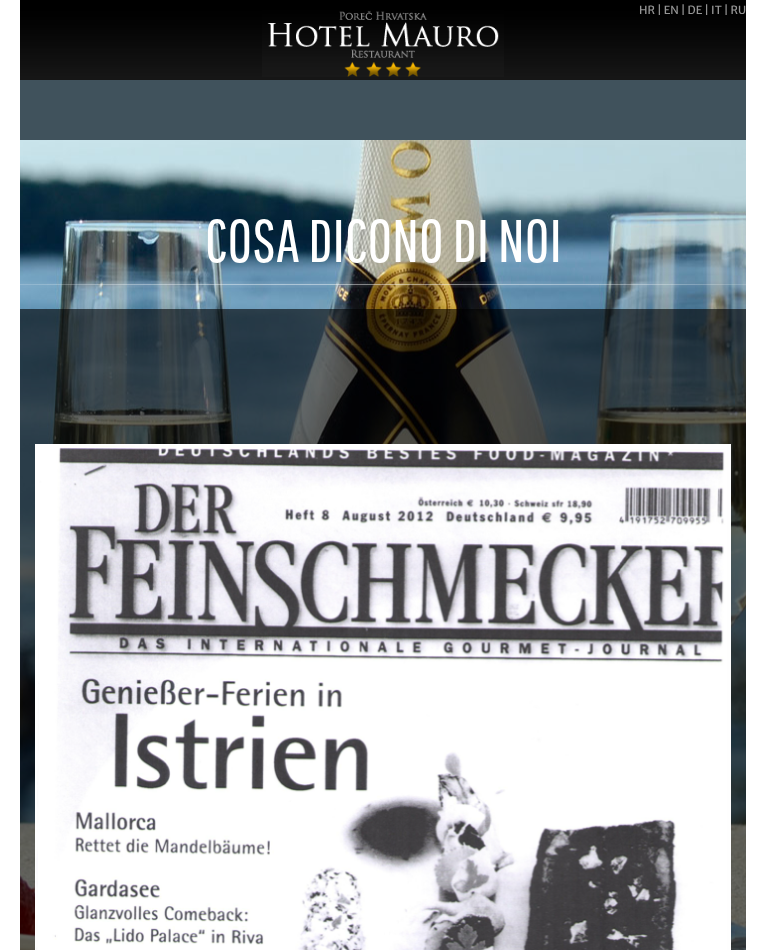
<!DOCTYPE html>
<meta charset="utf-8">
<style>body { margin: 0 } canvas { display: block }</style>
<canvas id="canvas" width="766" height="950"></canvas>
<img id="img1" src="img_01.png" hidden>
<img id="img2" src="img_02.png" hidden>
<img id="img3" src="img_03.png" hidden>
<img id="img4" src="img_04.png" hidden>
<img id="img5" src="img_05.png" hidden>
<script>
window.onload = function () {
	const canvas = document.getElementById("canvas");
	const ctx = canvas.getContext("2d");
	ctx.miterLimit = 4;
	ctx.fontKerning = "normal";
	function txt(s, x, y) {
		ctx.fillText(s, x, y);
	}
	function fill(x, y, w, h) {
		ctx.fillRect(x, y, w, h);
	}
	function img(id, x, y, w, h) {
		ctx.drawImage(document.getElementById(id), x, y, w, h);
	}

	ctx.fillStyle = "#FFFFFF";
	fill(0, 0, 766, 950);
	img("img1", 20, 0, 726, 80);
	img("img2", 262, 10, 242, 67);
	ctx.fillStyle = "#40525C";
	fill(20, 80, 726, 60);
	img("img3", 20, 140, 726, 810);
	img("img4", 20, 281, 726, 7);
	ctx.fillStyle = "rgba(0, 0, 0, 0.6)";
	fill(20, 309, 726, 641);
	img("img5", 35, 444, 696, 506);
	ctx.font = "11.25px Merriweather Sans";
	ctx.fillStyle = "#959595";
	txt("HR | EN | DE | IT | RU", 639, 14);
	ctx.font = "60px Pathway Gothic One";
	ctx.fillStyle = "#FFFFFF";
	txt("COSA DICONO DI NOI", 205, 262);
};
</script>
